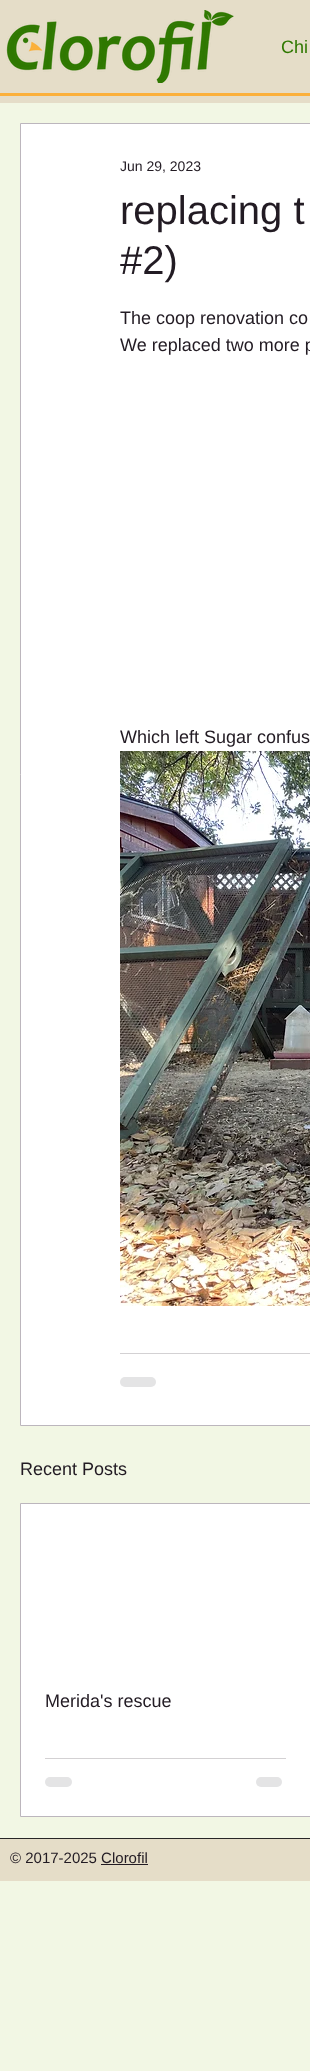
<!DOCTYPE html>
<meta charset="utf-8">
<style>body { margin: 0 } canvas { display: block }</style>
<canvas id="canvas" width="310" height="2071"></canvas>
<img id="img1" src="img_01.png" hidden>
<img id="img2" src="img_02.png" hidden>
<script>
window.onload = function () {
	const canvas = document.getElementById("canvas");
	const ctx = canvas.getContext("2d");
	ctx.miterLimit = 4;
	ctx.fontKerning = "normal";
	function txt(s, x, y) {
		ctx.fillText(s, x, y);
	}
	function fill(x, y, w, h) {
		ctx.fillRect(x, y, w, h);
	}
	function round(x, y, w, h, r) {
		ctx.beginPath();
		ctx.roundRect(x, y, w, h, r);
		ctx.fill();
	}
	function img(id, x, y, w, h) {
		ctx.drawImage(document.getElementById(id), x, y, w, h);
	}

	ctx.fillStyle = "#F2F7E4";
	fill(0, 0, 310, 2071);
	ctx.fillStyle = "#E5DDC8";
	fill(0, 0, 310, 103);
	img("img1", 6, 10, 228, 73);
	ctx.fillStyle = "#FBB03B";
	fill(0, 93, 310, 3);
	ctx.fillStyle = "#FFFFFF";
	ctx.beginPath();
	ctx.rect(20.5, 123.5, 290, 1302);
	ctx.fill();
	ctx.strokeStyle = "#BCB6BD";
	ctx.stroke();
	img("img2", 120, 751, 190, 555);
	ctx.fillStyle = "#D3D1D3";
	fill(120, 1353, 190, 1);
	ctx.fillStyle = "#E4E4E5";
	round(120, 1377, 36, 10, 5);
	ctx.fillStyle = "#FFFFFF";
	ctx.beginPath();
	ctx.rect(20.5, 1503.5, 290, 313);
	ctx.fill();
	ctx.stroke();
	ctx.fillStyle = "#D3D1D3";
	fill(45, 1758, 241, 1);
	ctx.fillStyle = "#E4E4E5";
	round(45, 1777, 27, 10, 5);
	round(256, 1777, 26, 10, 5);
	ctx.fillStyle = "#E5DDC8";
	fill(0, 1839, 310, 42);
	ctx.fillStyle = "#282626";
	fill(0, 1838, 310, 1);
	ctx.fillStyle = "#221B23";
	fill(101, 1864, 47, 1);
	ctx.font = "18px Liberation Sans";
	ctx.fillStyle = "#2F7800";
	txt("Chi", 281, 53);
	ctx.font = "14px Liberation Sans";
	ctx.fillStyle = "#221B23";
	txt("Jun 29, 2023", 120, 171);
	ctx.font = "40px Liberation Sans";
	txt("replacing t", 120, 224);
	txt("#2)", 120, 274);
	ctx.font = "18px Liberation Sans";
	txt("The coop renovation co", 120, 324);
	txt("We replaced two more p", 120, 351);
	txt("Which left Sugar confus", 120, 743);
	txt("Recent Posts", 20, 1475);
	txt("Merida's rescue", 45, 1707);
	ctx.font = "15px Liberation Sans";
	txt("© 2017-2025 Clorofil", 10, 1863);
};
</script>
